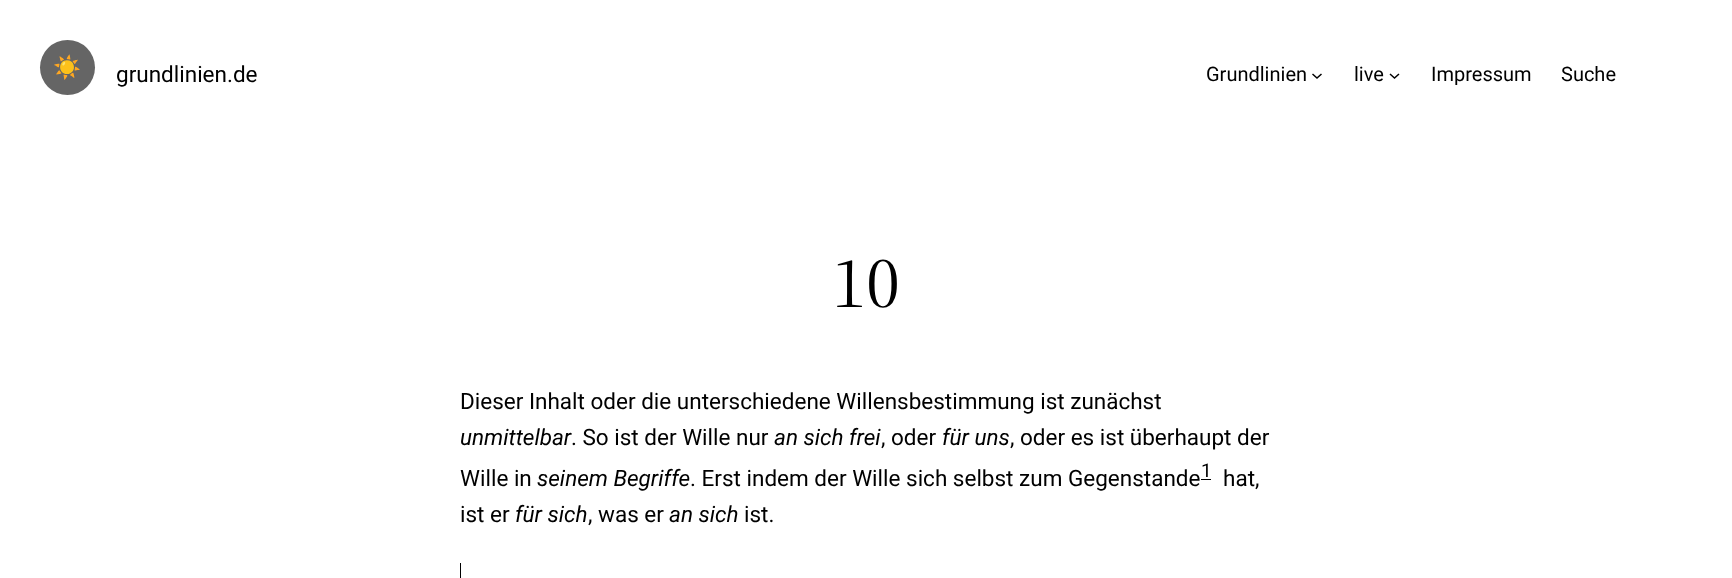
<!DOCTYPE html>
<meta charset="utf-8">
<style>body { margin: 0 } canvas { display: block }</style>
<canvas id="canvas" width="1732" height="578"></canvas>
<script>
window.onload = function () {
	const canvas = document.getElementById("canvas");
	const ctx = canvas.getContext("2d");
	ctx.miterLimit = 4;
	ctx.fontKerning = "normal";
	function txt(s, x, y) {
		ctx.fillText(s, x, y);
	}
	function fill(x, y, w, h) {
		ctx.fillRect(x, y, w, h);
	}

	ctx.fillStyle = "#FFFFFF";
	fill(0, 0, 1732, 578);
	ctx.fillStyle = "#656565";
	ctx.beginPath();
	ctx.arc(67.5, 67.5, 27.5, 0, Math.PI * 2);
	ctx.fill();
	ctx.beginPath();
	ctx.moveTo(1312.5, 74);
	ctx.lineTo(1317, 78);
	ctx.lineTo(1321.5, 74);
	ctx.strokeStyle = "#000000";
	ctx.lineWidth = 1.5;
	ctx.stroke();
	ctx.beginPath();
	ctx.moveTo(1390, 74);
	ctx.lineTo(1394.5, 78);
	ctx.lineTo(1399, 74);
	ctx.stroke();
	ctx.fillStyle = "#000000";
	fill(1201, 479, 10, 1);
	fill(460, 563, 1, 15);
	ctx.font = "bold 22.5px Noto Color Emoji";
	ctx.fillStyle = "#EEEEEE";
	txt("☀️", 53, 75);
	ctx.font = "22.5px Roboto";
	ctx.fillStyle = "#000000";
	txt("grundlinien.de", 116, 82);
	ctx.font = "20px Roboto";
	txt("Grundlinien", 1206, 81);
	txt("live", 1354, 81);
	txt("Impressum", 1431, 81);
	txt("Suche", 1561, 81);
	ctx.font = "72px 'Source Serif 4'";
	txt("10", 832, 307);
	ctx.font = "22.5px Roboto";
	txt("Dieser Inhalt oder die unterschiedene Willensbestimmung ist zunächst", 460, 409);
	ctx.font = "italic 22.5px Roboto";
	txt("unmittelbar", 460, 445);
	ctx.font = "22.5px Roboto";
	txt(". So ist der Wille nur", 571, 445);
	ctx.font = "italic 22.5px Roboto";
	txt("an sich frei", 774, 445);
	ctx.font = "22.5px Roboto";
	txt(", oder", 881, 445);
	ctx.font = "italic 22.5px Roboto";
	txt("für uns", 942, 445);
	ctx.font = "22.5px Roboto";
	txt(", oder es ist überhaupt der", 1010, 445);
	txt("Wille in", 460, 486);
	ctx.font = "italic 22.5px Roboto";
	txt("seinem Begriffe", 537, 486);
	ctx.font = "22.5px Roboto";
	txt(". Erst indem der Wille sich selbst zum Gegenstande", 690, 486);
	ctx.font = "19px Roboto";
	txt("1", 1201, 477);
	ctx.font = "22.5px Roboto";
	txt("hat,", 1223, 486);
	txt("ist er", 460, 522);
	ctx.font = "italic 22.5px Roboto";
	txt("für sich", 515, 522);
	ctx.font = "22.5px Roboto";
	txt(", was er", 588, 522);
	ctx.font = "italic 22.5px Roboto";
	txt("an sich", 669, 522);
	ctx.font = "22.5px Roboto";
	txt("ist.", 744, 522);
};
</script>
